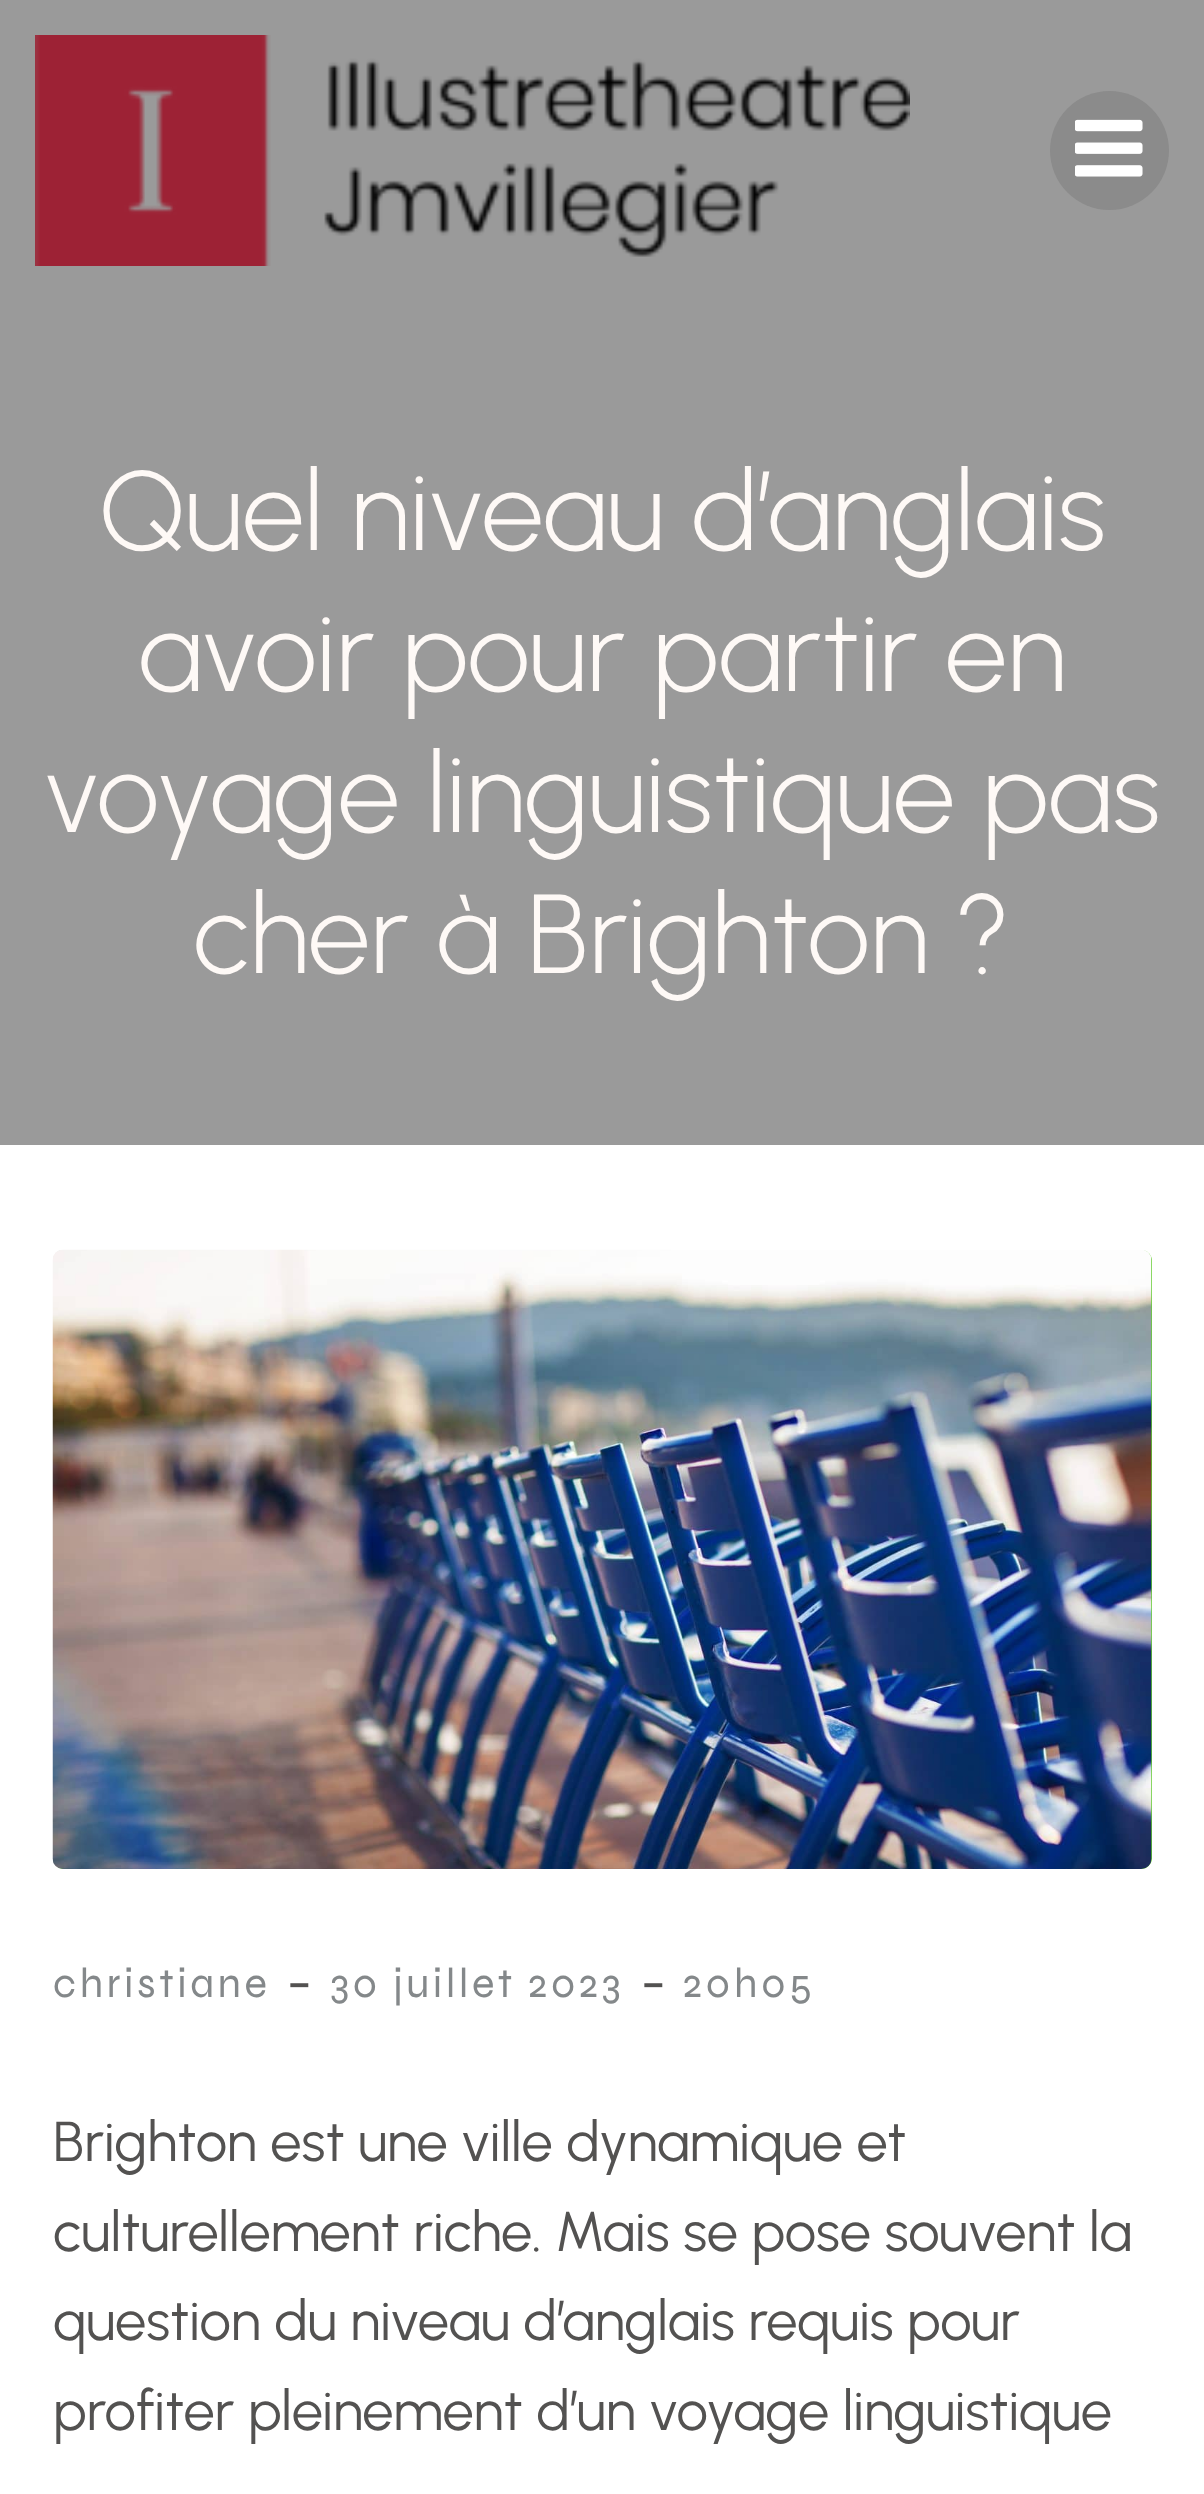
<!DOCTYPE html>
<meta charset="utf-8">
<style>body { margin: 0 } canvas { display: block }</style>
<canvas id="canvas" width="1204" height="2494"></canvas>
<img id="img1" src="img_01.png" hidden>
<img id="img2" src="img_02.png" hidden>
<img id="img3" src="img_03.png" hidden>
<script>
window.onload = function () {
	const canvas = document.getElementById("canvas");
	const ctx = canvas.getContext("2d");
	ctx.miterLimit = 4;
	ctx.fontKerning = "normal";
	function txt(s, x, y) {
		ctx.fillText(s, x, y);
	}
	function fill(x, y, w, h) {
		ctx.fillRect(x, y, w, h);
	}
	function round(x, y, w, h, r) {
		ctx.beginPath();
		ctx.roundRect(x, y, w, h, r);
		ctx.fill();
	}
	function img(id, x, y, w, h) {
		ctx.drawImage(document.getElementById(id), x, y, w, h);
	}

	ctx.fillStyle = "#FFFFFF";
	fill(0, 0, 1204, 2494);
	ctx.fillStyle = "#9A9A9A";
	fill(0, 0, 1204, 1145);
	img("img1", 35, 35, 875, 231);
	ctx.fillStyle = "#8B8B8B";
	ctx.beginPath();
	ctx.arc(1109.5, 150.5, 59.5, 0, Math.PI * 2);
	ctx.fill();
	img("img2", 1075, 119, 68, 58);
	ctx.fillStyle = "#66CC33";
	round(53, 1250, 1099, 619, 11);
	img("img3", 52, 1249, 1100, 620);
	ctx.font = "300 112px Urbanist";
	ctx.fillStyle = "#FEF9F6";
	txt("Quel niveau d’anglais", 99, 550);
	txt("avoir pour partir en", 138, 691);
	txt("voyage linguistique pas", 44, 832);
	txt("cher à Brighton ?", 193, 973);
	ctx.letterSpacing = "3.5px";
	ctx.font = "42px Syne";
	ctx.fillStyle = "#84888A";
	txt("christiane", 53, 1997);
	ctx.letterSpacing = "0px";
	ctx.font = "56px Urbanist";
	ctx.fillStyle = "#535251";
	txt("-", 287, 2002);
	ctx.letterSpacing = "3.5px";
	ctx.font = "42px Syne";
	ctx.fillStyle = "#84888A";
	txt("30 juillet 2023", 330, 1997);
	ctx.letterSpacing = "0px";
	ctx.font = "56px Urbanist";
	ctx.fillStyle = "#535251";
	txt("-", 641, 2002);
	ctx.letterSpacing = "3.5px";
	ctx.font = "42px Syne";
	ctx.fillStyle = "#84888A";
	txt("20h05", 683, 1997);
	ctx.letterSpacing = "0px";
	ctx.font = "56px Urbanist";
	ctx.fillStyle = "#535251";
	txt("Brighton est une ville dynamique et", 53, 2161);
	txt("culturellement riche. Mais se pose souvent la", 53, 2251);
	txt("question du niveau d’anglais requis pour", 53, 2340);
	txt("profiter pleinement d’un voyage linguistique", 53, 2430);
};
</script>
